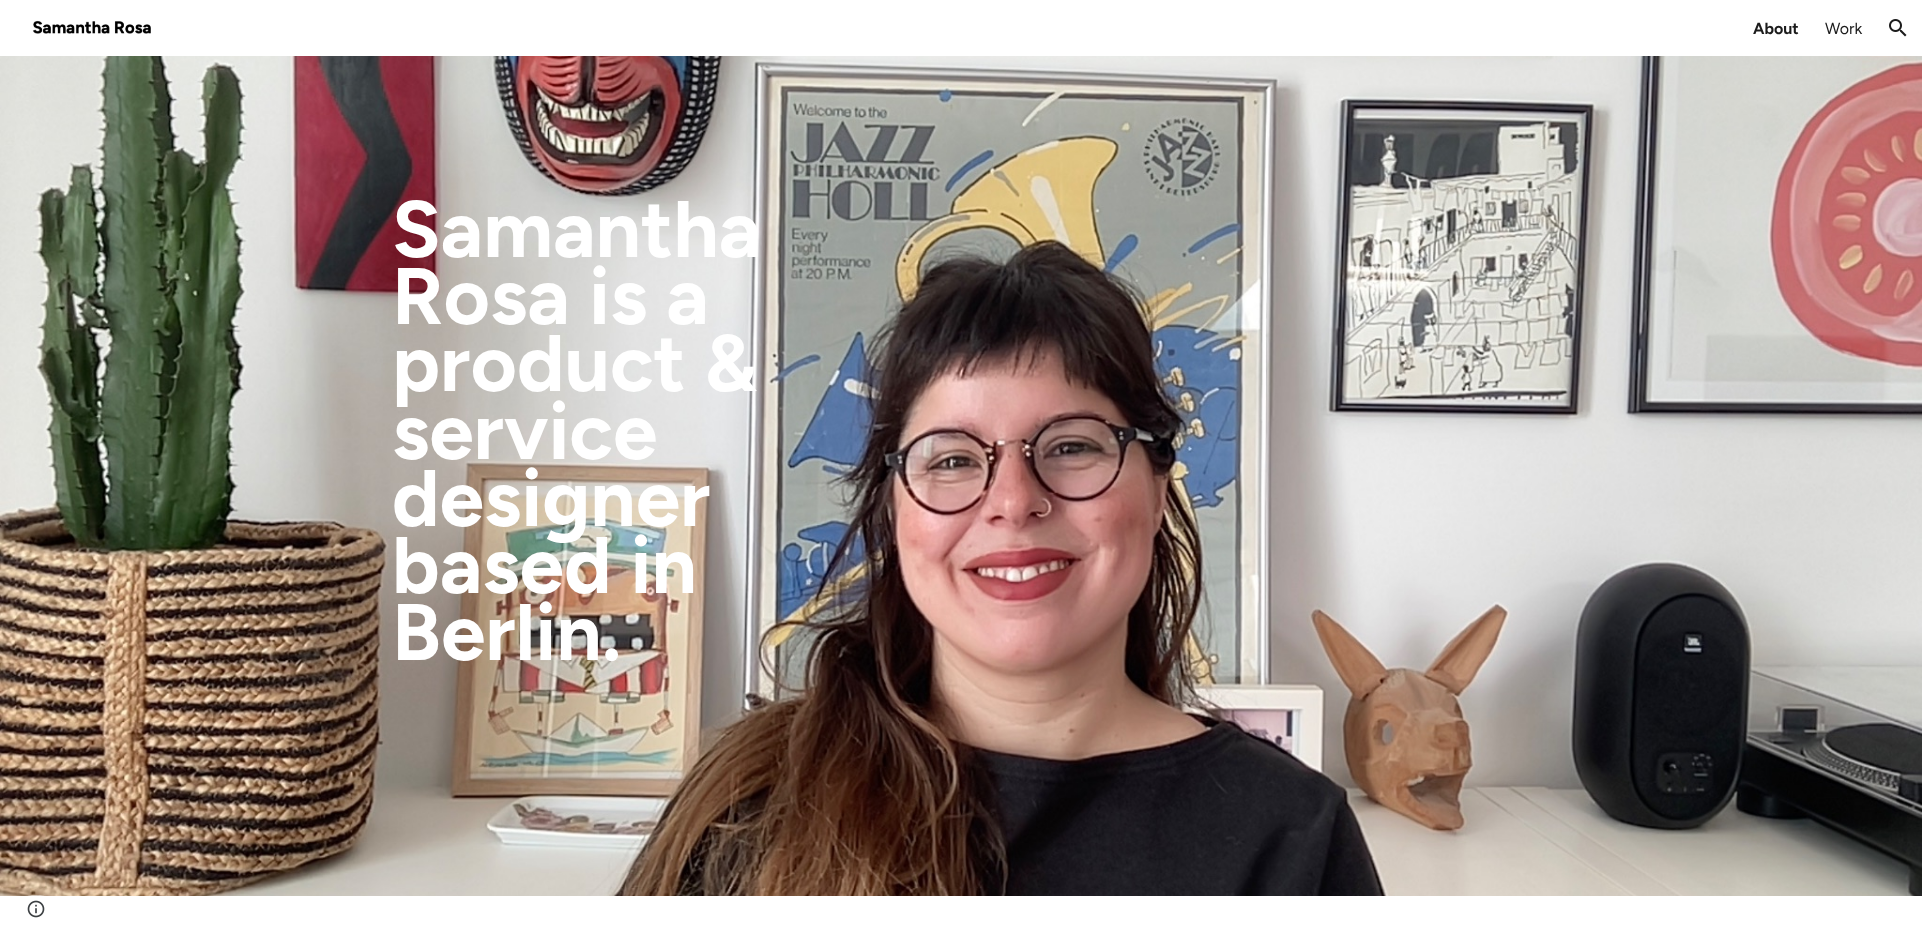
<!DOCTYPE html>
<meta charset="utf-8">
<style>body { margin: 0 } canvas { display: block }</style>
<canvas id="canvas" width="1922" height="943"></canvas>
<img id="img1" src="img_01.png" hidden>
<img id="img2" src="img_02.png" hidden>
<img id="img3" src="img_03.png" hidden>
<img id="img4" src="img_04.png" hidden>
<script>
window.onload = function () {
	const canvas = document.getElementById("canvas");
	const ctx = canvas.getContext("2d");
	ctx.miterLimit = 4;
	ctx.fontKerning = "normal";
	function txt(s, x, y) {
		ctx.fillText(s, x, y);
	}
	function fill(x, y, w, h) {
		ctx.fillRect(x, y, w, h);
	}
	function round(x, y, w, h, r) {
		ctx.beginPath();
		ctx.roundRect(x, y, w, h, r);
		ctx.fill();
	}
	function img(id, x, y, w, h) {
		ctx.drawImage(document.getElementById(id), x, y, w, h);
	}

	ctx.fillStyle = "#FFFFFF";
	fill(0, 0, 1922, 943);
	img("img1", 32, 20, 119, 14);
	img("img2", 1889, 19, 18, 18);
	img("img3", 0, 56, 1922, 840);
	ctx.fillStyle = "rgba(255, 255, 255, 0.5)";
	round(22, 895, 28, 28, 10);
	img("img4", 27, 900, 18, 18);
	ctx.font = "bold 16px Figtree";
	ctx.fillStyle = "#1C1C1C";
	txt("About", 1753, 34);
	ctx.font = "16px Figtree";
	txt("Work", 1825, 34);
	ctx.font = "bold 80px Figtree";
	ctx.fillStyle = "#FFFFFF";
	txt("Samantha", 392, 257);
	txt("Rosa is a", 392, 324);
	txt("product &", 392, 391);
	txt("service", 392, 459);
	txt("designer", 392, 526);
	txt("based in", 392, 593);
	txt("Berlin.", 392, 660);
};
</script>
